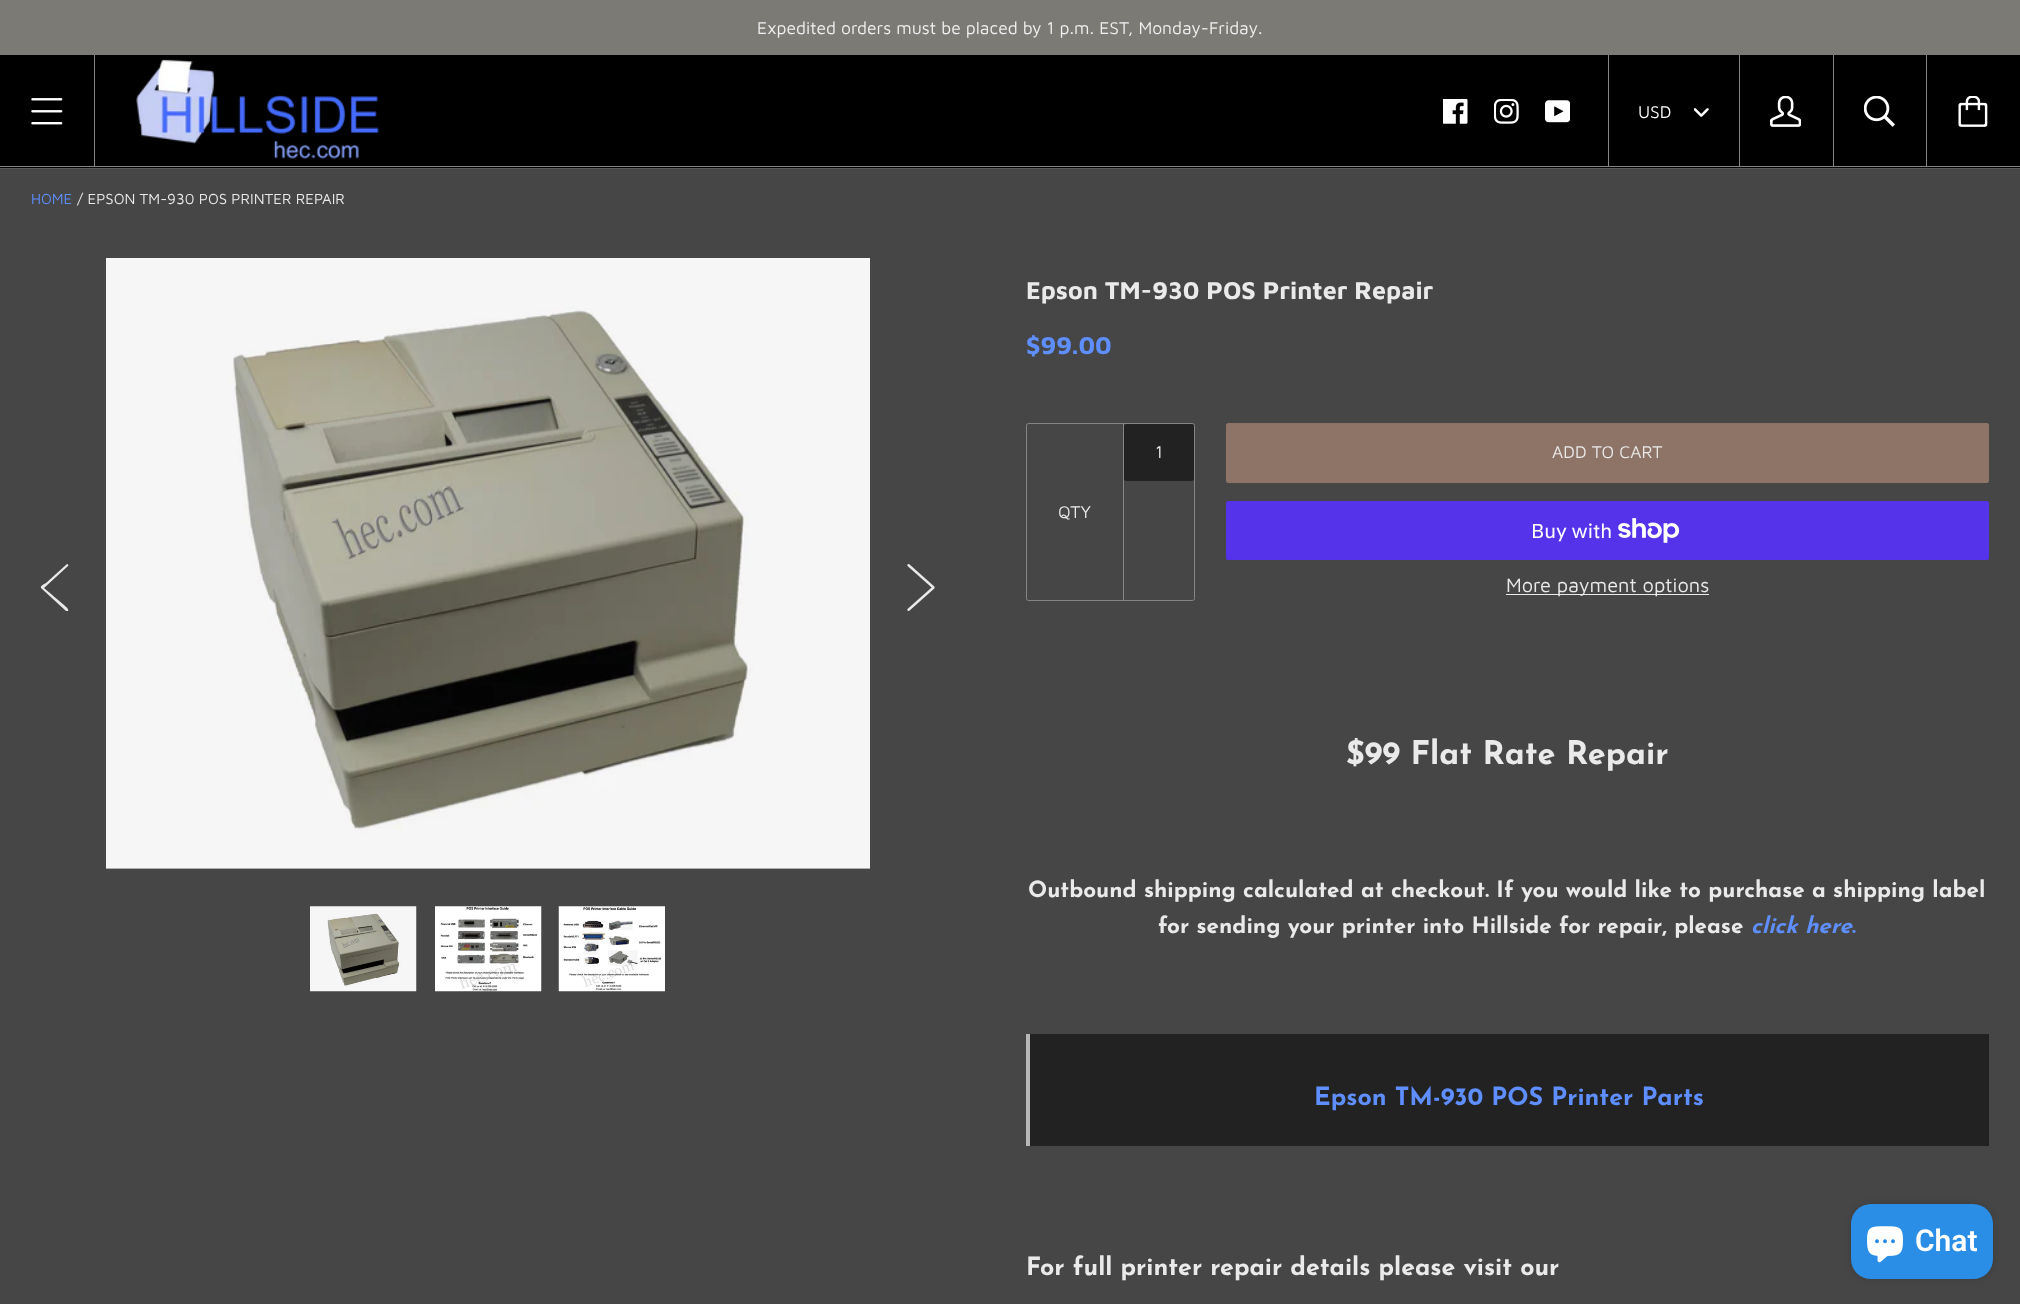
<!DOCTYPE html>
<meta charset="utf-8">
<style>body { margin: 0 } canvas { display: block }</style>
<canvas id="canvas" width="2020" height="1304"></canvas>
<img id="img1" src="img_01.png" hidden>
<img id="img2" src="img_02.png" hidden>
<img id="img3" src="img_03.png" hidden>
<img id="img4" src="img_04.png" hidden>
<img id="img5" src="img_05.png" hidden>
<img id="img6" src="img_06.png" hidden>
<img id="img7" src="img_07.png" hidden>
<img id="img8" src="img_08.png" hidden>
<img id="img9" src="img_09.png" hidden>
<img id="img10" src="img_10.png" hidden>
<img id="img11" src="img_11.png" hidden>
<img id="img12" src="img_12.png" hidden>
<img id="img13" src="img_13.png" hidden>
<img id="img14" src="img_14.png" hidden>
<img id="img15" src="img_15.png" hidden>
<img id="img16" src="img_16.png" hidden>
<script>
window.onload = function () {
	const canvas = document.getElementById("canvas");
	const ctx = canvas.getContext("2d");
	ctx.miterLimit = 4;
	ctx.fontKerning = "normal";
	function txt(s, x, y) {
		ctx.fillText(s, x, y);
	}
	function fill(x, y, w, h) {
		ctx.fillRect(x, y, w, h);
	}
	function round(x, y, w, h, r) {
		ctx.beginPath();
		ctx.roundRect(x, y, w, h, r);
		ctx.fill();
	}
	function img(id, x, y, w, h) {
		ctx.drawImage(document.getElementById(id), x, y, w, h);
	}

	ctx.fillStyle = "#464646";
	fill(0, 0, 2020, 1304);
	ctx.fillStyle = "#7C7A75";
	fill(0, 0, 2020, 55);
	ctx.fillStyle = "#595959";
	fill(0, 168, 2020, 1);
	ctx.fillStyle = "#000000";
	fill(0, 55, 2020, 113);
	ctx.fillStyle = "#858585";
	fill(0, 166, 2020, 1);
	img("img1", 31, 98, 32, 27);
	fill(94, 55, 1, 111);
	img("img2", 136, 59, 243, 100);
	img("img3", 1443, 99, 25, 25);
	img("img4", 1494, 99, 25, 25);
	img("img5", 1545, 100, 25, 23);
	fill(1608, 55, 1, 111);
	img("img6", 1694, 108, 15, 9);
	fill(1739, 55, 1, 111);
	img("img7", 1770, 96, 31, 31);
	fill(1833, 55, 1, 111);
	img("img8", 1864, 96, 31, 31);
	fill(1926, 55, 1, 111);
	img("img9", 1958, 96, 30, 31);
	ctx.fillStyle = "#EAEAEA";
	ctx.beginPath();
	ctx.moveTo(68, 566);
	ctx.lineTo(44, 588);
	ctx.bezierCurveTo(65, 606, 70, 609, 68, 611);
	ctx.lineTo(66, 611);
	ctx.lineTo(41, 588);
	ctx.bezierCurveTo(40, 586, 44, 584, 46, 583);
	ctx.lineTo(67, 564);
	ctx.bezierCurveTo(68, 564, 69, 566, 68, 566);
	ctx.closePath();
	ctx.fill();
	img("img10", 106, 258, 764, 611);
	img("img11", 907, 564, 28, 47);
	img("img12", 310, 906, 107, 86);
	img("img13", 435, 906, 107, 86);
	img("img14", 558, 906, 107, 86);
	ctx.beginPath();
	ctx.roundRect(1026.5, 423.5, 168, 177, 2);
	ctx.strokeStyle = "#858585";
	ctx.stroke();
	ctx.fillStyle = "#222222";
	round(1124, 424, 70, 57, 2.5);
	ctx.fillStyle = "#858585";
	fill(1123, 424, 1, 176);
	ctx.fillStyle = "#8E7466";
	round(1226, 423, 763, 60, 2.5);
	ctx.fillStyle = "#5433EB";
	round(1226, 501, 763, 59, 2.5);
	img("img15", 1618, 518, 62, 25);
	ctx.fillStyle = "#EAEAEA";
	fill(1506, 594, 203, 1);
	ctx.fillStyle = "#222222";
	fill(1030, 1034, 959, 112);
	ctx.fillStyle = "#B7B7B7";
	fill(1026, 1034, 4, 112);
	ctx.fillStyle = "rgba(0, 0, 0, 0.15)";
	ctx.filter = "blur(3px)";
	ctx.beginPath();
	ctx.roundRect(1851, 1204, 142, 75, 20);
	ctx.fill();
	ctx.filter = "none";
	ctx.fillStyle = "#2A8EE7";
	round(1851, 1204, 142, 75, 20);
	img("img16", 1867, 1226, 36, 37);
	ctx.font = "17.5px Maven Pro";
	ctx.fillStyle = "#F0F0F0";
	txt("Expedited orders must be placed by 1 p.m. EST, Monday-Friday.", 757, 34);
	ctx.fillStyle = "#FFFFFF";
	txt("USD", 1638, 118);
	ctx.font = "15px Maven Pro";
	ctx.fillStyle = "#5E8EFF";
	txt("HOME", 31, 204);
	ctx.fillStyle = "#EAEAEA";
	txt("/ EPSON TM-930 POS PRINTER REPAIR", 77, 204);
	ctx.font = "bold 25px Maven Pro";
	txt("Epson TM-930 POS Printer Repair", 1026, 299);
	ctx.fillStyle = "#5E8EFF";
	txt("$99.00", 1026, 354);
	ctx.font = "17.5px Maven Pro";
	ctx.fillStyle = "#EAEAEA";
	txt("1", 1155, 458);
	txt("QTY", 1058, 518);
	txt("ADD TO CART", 1552, 458);
	ctx.font = "20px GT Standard";
	ctx.fillStyle = "#FFFFFF";
	txt("Buy with", 1531, 538);
	ctx.font = "20px Maven Pro";
	ctx.fillStyle = "#EAEAEA";
	txt("More payment options", 1506, 592);
	ctx.font = "bold 32.5px Josefin Sans";
	txt("$99 Flat Rate Repair", 1346, 764);
	ctx.font = "bold 22.5px Josefin Sans";
	txt("Outbound shipping calculated at checkout. If you would like to purchase a shipping label", 1028, 897);
	txt("for sending your printer into Hillside for repair, please", 1158, 933);
	ctx.font = "italic bold 22.5px Josefin Sans";
	ctx.fillStyle = "#5E8EFF";
	txt("click here", 1751, 933);
	ctx.font = "bold 22.5px Josefin Sans";
	txt(".", 1852, 933);
	ctx.font = "bold 25px Josefin Sans";
	txt("Epson TM-930 POS Printer Parts", 1314, 1105);
	ctx.fillStyle = "#EAEAEA";
	txt("For full printer repair details please visit our", 1026, 1275);
	ctx.font = "600 30px Roboto";
	ctx.fillStyle = "#FFFFFF";
	txt("Chat", 1915, 1251);
};
</script>
